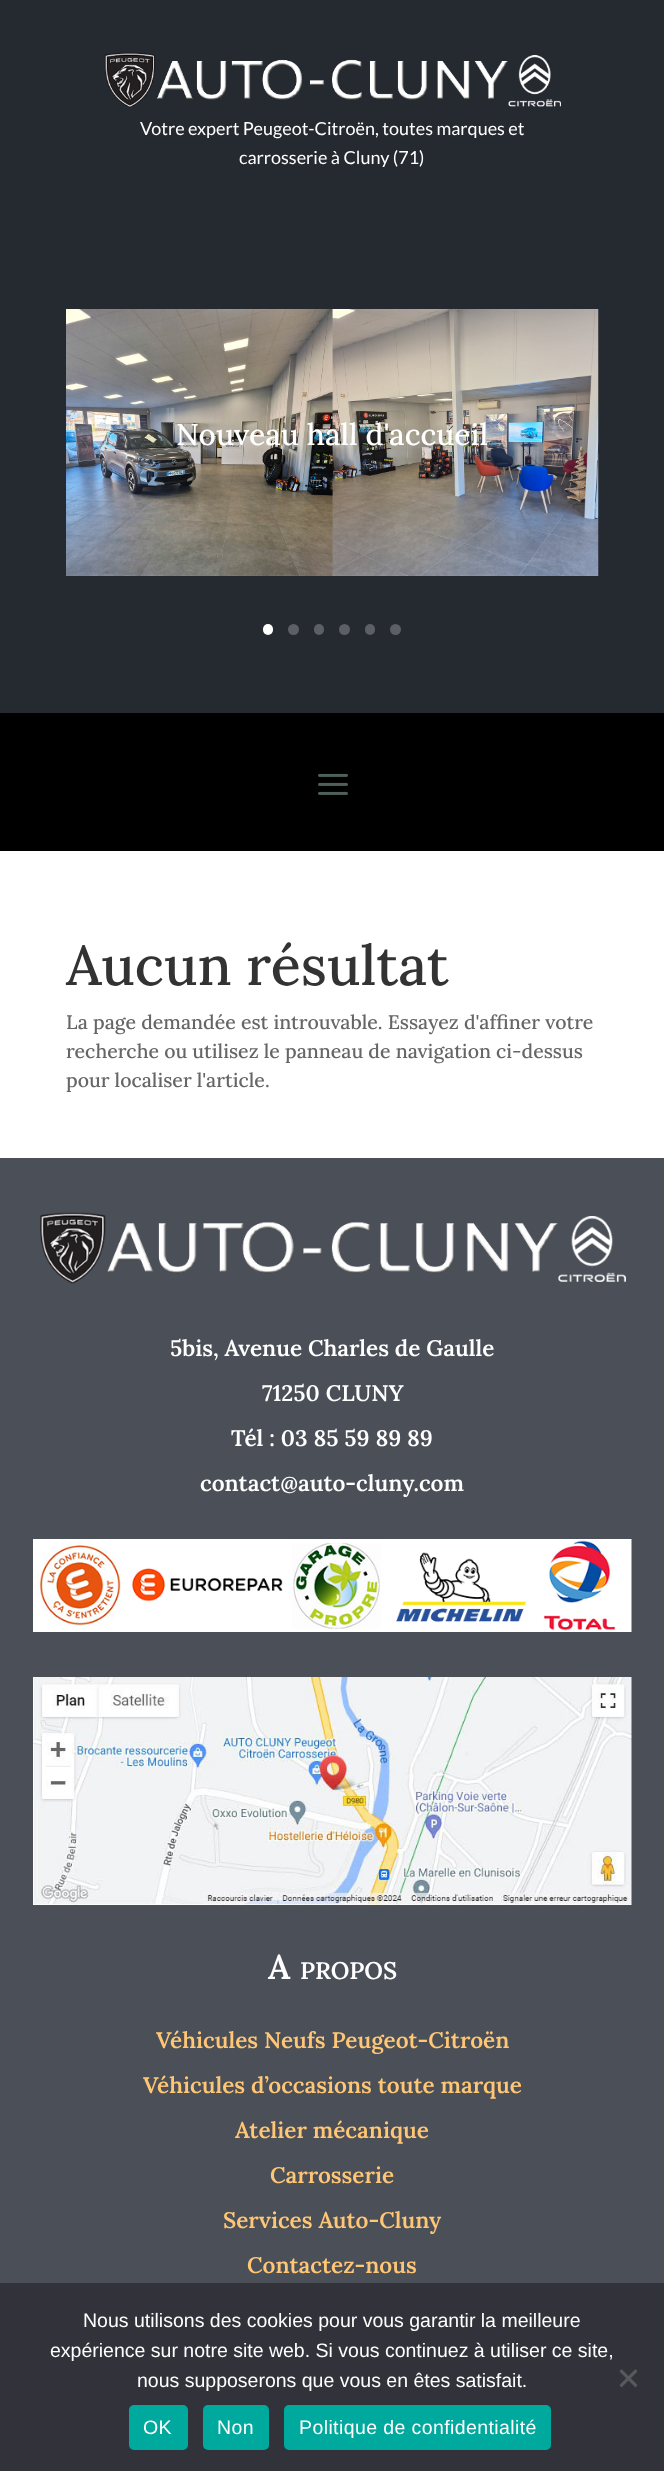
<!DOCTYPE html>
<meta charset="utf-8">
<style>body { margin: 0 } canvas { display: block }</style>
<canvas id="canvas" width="664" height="2471"></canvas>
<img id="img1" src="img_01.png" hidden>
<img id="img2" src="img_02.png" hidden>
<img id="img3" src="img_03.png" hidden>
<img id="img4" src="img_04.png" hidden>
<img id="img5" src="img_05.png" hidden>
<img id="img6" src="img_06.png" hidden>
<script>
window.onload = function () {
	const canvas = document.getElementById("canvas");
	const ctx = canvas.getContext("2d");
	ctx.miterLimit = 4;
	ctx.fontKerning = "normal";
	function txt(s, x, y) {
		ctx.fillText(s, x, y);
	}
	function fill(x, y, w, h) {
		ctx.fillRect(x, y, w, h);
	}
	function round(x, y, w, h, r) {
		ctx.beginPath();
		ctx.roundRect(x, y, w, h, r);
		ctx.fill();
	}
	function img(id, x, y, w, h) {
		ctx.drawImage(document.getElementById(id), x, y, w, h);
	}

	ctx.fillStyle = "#FFFFFF";
	fill(0, 0, 664, 2471);
	ctx.fillStyle = "#252930";
	fill(0, 0, 664, 713);
	img("img1", 104, 52, 457, 56);
	img("img2", 66, 309, 533, 267);
	ctx.fillStyle = "#FFFFFF";
	round(263, 624, 10, 11, 5);
	ctx.fillStyle = "#5C5F64";
	ctx.beginPath();
	ctx.arc(293.5, 629.5, 5.5, 0, Math.PI * 2);
	ctx.fill();
	round(314, 624, 10, 11, 5);
	ctx.beginPath();
	ctx.arc(344.5, 629.5, 5.5, 0, Math.PI * 2);
	ctx.fill();
	round(365, 624, 10, 11, 5);
	ctx.beginPath();
	ctx.arc(395.5, 629.5, 5.5, 0, Math.PI * 2);
	ctx.fill();
	ctx.fillStyle = "#000000";
	fill(0, 713, 664, 138);
	img("img3", 318, 773, 30, 22);
	ctx.fillStyle = "#4B4F57";
	fill(0, 1158, 664, 1125);
	img("img4", 40, 1212, 586, 72);
	img("img5", 33, 1539, 599, 93);
	img("img6", 33, 1677, 599, 228);
	ctx.fillStyle = "#32323A";
	fill(0, 2283, 664, 188);
	ctx.fillStyle = "#59595D";
	ctx.beginPath();
	ctx.moveTo(635.5, 2369);
	ctx.lineTo(637.5, 2371.5);
	ctx.lineTo(621.5, 2387.5);
	ctx.lineTo(619.5, 2385);
	ctx.closePath();
	ctx.fill();
	ctx.beginPath();
	ctx.moveTo(619.5, 2371.5);
	ctx.lineTo(621.5, 2369);
	ctx.lineTo(637.5, 2385);
	ctx.lineTo(635.5, 2387.5);
	ctx.closePath();
	ctx.fill();
	ctx.fillStyle = "#00A99D";
	round(129, 2405, 59, 45, 5);
	round(203, 2405, 66, 45, 5);
	round(284, 2405, 267, 45, 5);
	ctx.font = "18px Lato";
	ctx.fillStyle = "#FFFFFF";
	txt("Votre expert Peugeot-Citroën, toutes marques et", 140, 135);
	txt("carrosserie à Cluny (71)", 239, 164);
	ctx.font = "500 30px Lora";
	txt("Nouveau hall d'accueil", 176, 445);
	ctx.font = "500 55.5px Lora";
	ctx.fillStyle = "#333333";
	txt("Aucun résultat", 66, 985);
	ctx.font = "500 19.5px Lora";
	ctx.fillStyle = "#666666";
	txt("La page demandée est introuvable. Essayez d'affiner votre", 66, 1029);
	txt("recherche ou utilisez le panneau de navigation ci-dessus", 66, 1058);
	txt("pour localiser l'article.", 66, 1087);
	ctx.font = "600 22.5px Lora";
	ctx.fillStyle = "#FFFFFF";
	txt("5bis, Avenue Charles de Gaulle", 170, 1356);
	txt("71250 CLUNY", 262, 1401);
	txt("Tél : 03 85 59 89 89", 231, 1446);
	txt("contact@auto-cluny.com", 200, 1491);
	ctx.font = "600 34px Lora";
	txt("A", 268, 1979);
	ctx.font = "600 24px Lora";
	txt("PROPOS", 300, 1979);
	ctx.font = "600 22.5px Lora";
	ctx.fillStyle = "#FFC775";
	txt("Véhicules Neufs Peugeot-Citroën", 156, 2048);
	txt("Véhicules d’occasions toute marque", 143, 2093);
	txt("Atelier mécanique", 235, 2138);
	txt("Carrosserie", 270, 2183);
	txt("Services Auto-Cluny", 223, 2228);
	txt("Contactez-nous", 247, 2273);
	ctx.font = "19.5px Liberation Sans";
	ctx.fillStyle = "#FFFFFF";
	txt("Nous utilisons des cookies pour vous garantir la meilleure", 83, 2327);
	txt("expérience sur notre site web. Si vous continuez à utiliser ce site,", 50, 2357);
	txt("nous supposerons que vous en êtes satisfait.", 137, 2387);
	ctx.letterSpacing = "0.4px";
	txt("OK", 143, 2434);
	txt("Non", 217, 2434);
	txt("Politique de confidentialité", 299, 2434);
};
</script>
